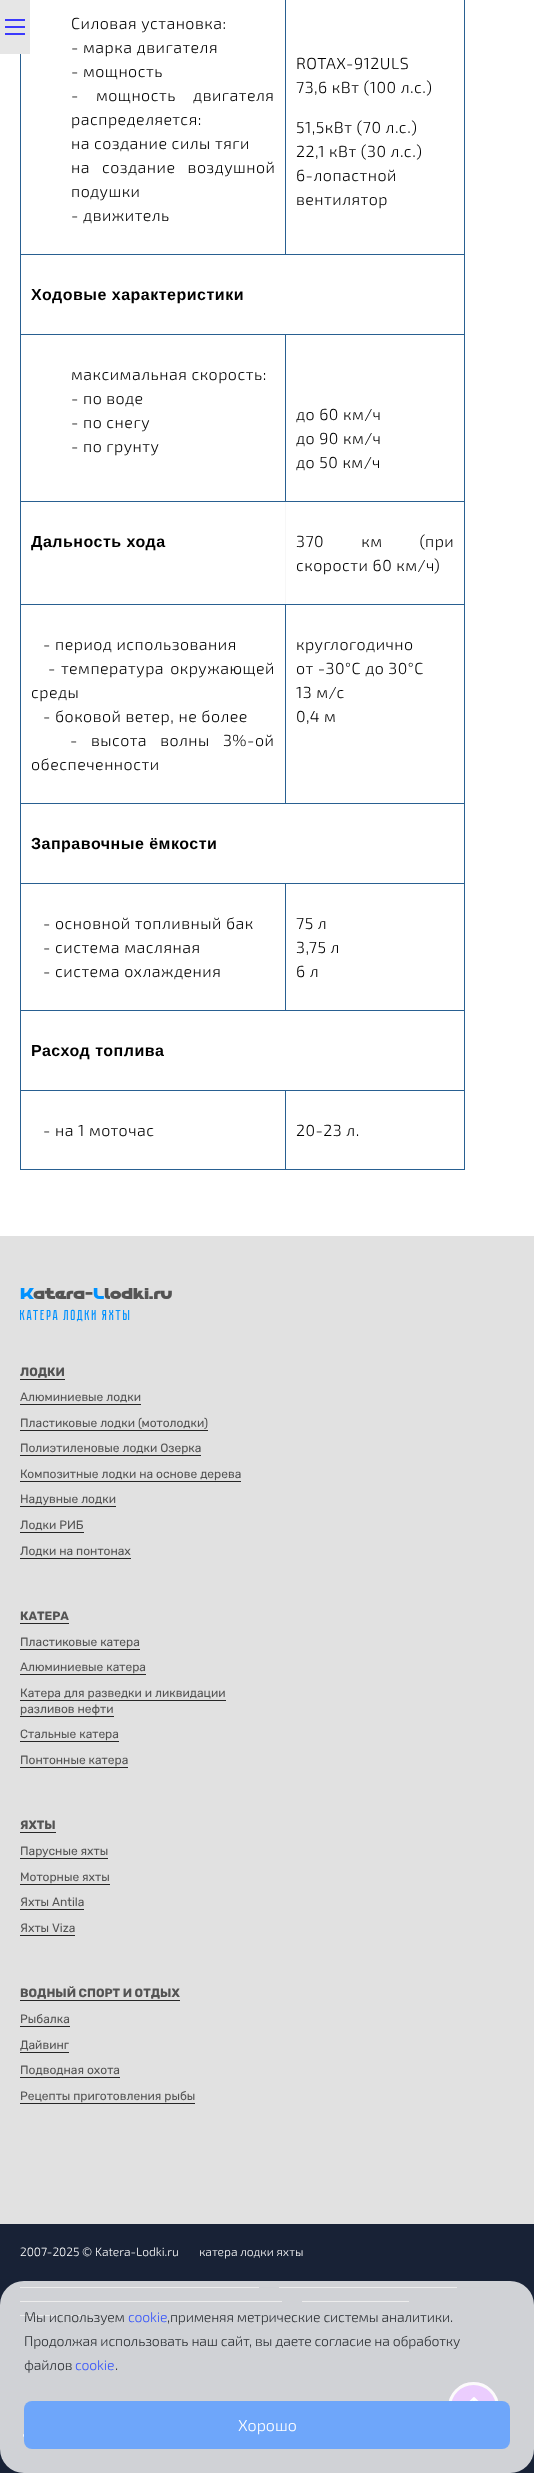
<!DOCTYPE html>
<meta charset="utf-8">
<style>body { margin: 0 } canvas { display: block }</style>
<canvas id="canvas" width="534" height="2473"></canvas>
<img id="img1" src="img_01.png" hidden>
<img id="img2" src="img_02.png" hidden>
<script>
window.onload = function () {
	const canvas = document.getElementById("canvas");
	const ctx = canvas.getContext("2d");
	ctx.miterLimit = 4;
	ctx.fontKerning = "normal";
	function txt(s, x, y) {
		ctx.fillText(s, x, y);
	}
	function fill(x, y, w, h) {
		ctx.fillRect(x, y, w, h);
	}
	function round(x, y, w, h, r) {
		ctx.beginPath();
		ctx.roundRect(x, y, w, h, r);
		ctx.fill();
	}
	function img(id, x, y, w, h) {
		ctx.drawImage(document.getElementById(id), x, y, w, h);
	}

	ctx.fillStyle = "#FFFFFF";
	fill(0, 0, 534, 2473);
	ctx.fillStyle = "#296091";
	fill(20, 0, 445, 1170);
	ctx.fillStyle = "#FFFFFF";
	fill(21, 0, 264, 254);
	ctx.fillStyle = "#E6E6E6";
	fill(0, 0, 30, 54);
	ctx.fillStyle = "#3B39FD";
	fill(5, 19, 20, 2);
	fill(5, 26, 20, 2);
	fill(5, 33, 20, 2);
	ctx.fillStyle = "#FFFFFF";
	fill(286, 0, 178, 254);
	fill(21, 255, 443, 79);
	fill(21, 335, 264, 166);
	fill(286, 335, 178, 166);
	ctx.fillStyle = "#F7F7F7";
	fill(285, 502, 1, 102);
	ctx.fillStyle = "#FFFFFF";
	fill(21, 502, 264, 102);
	fill(286, 502, 178, 102);
	fill(21, 605, 264, 198);
	fill(286, 605, 178, 198);
	fill(21, 804, 443, 79);
	fill(21, 884, 264, 126);
	fill(286, 884, 178, 126);
	fill(21, 1011, 443, 79);
	fill(21, 1091, 264, 78);
	fill(286, 1091, 178, 78);
	ctx.fillStyle = "#E1E1E1";
	fill(0, 1236, 534, 988);
	ctx.fillStyle = "#262626";
	fill(20, 1379, 45, 1);
	fill(20, 1404, 121, 1);
	fill(20, 1430, 188, 1);
	fill(20, 1455, 181, 1);
	fill(20, 1481, 221, 1);
	fill(20, 1506, 96, 1);
	fill(20, 1532, 64, 1);
	fill(20, 1558, 111, 1);
	fill(20, 1623, 49, 1);
	fill(20, 1649, 120, 1);
	fill(20, 1674, 126, 1);
	fill(20, 1700, 206, 1);
	fill(20, 1716, 94, 1);
	fill(20, 1741, 99, 1);
	fill(20, 1767, 108, 1);
	fill(20, 1832, 36, 1);
	fill(20, 1858, 88, 1);
	fill(20, 1884, 90, 1);
	fill(20, 1909, 64, 1);
	fill(20, 1935, 55, 1);
	fill(20, 2000, 160, 1);
	fill(20, 2026, 50, 1);
	fill(20, 2052, 49, 1);
	fill(20, 2077, 100, 1);
	fill(20, 2103, 175, 1);
	ctx.fillStyle = "#182236";
	fill(0, 2224, 534, 249);
	ctx.fillStyle = "#A5A5A5";
	fill(20, 2287, 239, 1);
	fill(279, 2287, 178, 1);
	fill(20, 2301, 262, 1);
	fill(302, 2301, 107, 1);
	fill(20, 2315, 67, 1);
	img("img1", 23, 2434, 1, 3);
	ctx.fillStyle = "#9909F7";
	ctx.beginPath();
	ctx.arc(473.5, 2407.5, 25.5, 0, Math.PI * 2);
	ctx.fill();
	img("img2", 469, 2397, 10, 4);
	ctx.beginPath();
	ctx.arc(473.5, 2407.5, 24, 0, Math.PI * 2);
	ctx.strokeStyle = "#ECEAE5";
	ctx.lineWidth = 3;
	ctx.stroke();
	ctx.fillStyle = "rgba(255, 255, 255, 0.8)";
	round(0, 2281, 534, 192, 24);
	ctx.fillStyle = "#6EA6FA";
	round(24, 2401, 486, 48, 8);
	ctx.letterSpacing = "0.5px";
	ctx.font = "300 16px 'Exo 2'";
	ctx.fillStyle = "#000000";
	txt("Силовая установка:", 71, 29);
	txt("- марка двигателя", 71, 53);
	txt("- мощность", 71, 77);
	ctx.wordSpacing = "13px";
	txt("- мощность двигателя", 71, 101);
	ctx.wordSpacing = "0px";
	txt("распределяется:", 71, 125);
	txt("на создание силы тяги", 71, 149);
	ctx.wordSpacing = "8px";
	txt("на создание воздушной", 71, 173);
	ctx.wordSpacing = "0px";
	txt("подушки", 71, 197);
	txt("- движитель", 71, 221);
	txt("ROTAX-912ULS", 296, 69);
	txt("73,6 кВт (100 л.с.)", 296, 93);
	txt("51,5кВт (70 л.с.)", 296, 133);
	txt("22,1 кВт (30 л.с.)", 296, 157);
	txt("6-лопастной", 296, 181);
	txt("вентилятор", 296, 205);
	ctx.font = "bold 16px Liberation Sans";
	txt("Ходовые характеристики", 31, 300);
	ctx.font = "300 16px 'Exo 2'";
	txt("максимальная скорость:", 71, 380);
	txt("- по воде", 71, 404);
	txt("- по снегу", 71, 428);
	txt("- по грунту", 71, 452);
	txt("до 60 км/ч", 296, 420);
	txt("до 90 км/ч", 296, 444);
	txt("до 50 км/ч", 296, 468);
	ctx.font = "bold 16px Liberation Sans";
	txt("Дальность хода", 31, 547);
	ctx.wordSpacing = "33px";
	ctx.font = "300 16px 'Exo 2'";
	txt("370 км (при", 296, 547);
	ctx.wordSpacing = "0px";
	txt("скорости 60 км/ч)", 296, 571);
	txt("- период использования", 43, 650);
	txt("-", 48, 674);
	ctx.wordSpacing = "2px";
	txt("температура окружающей", 61, 674);
	ctx.wordSpacing = "0px";
	txt("среды", 31, 698);
	txt("- боковой ветер, не более", 43, 722);
	ctx.wordSpacing = "9px";
	txt("- высота волны 3%-ой", 70, 746);
	ctx.wordSpacing = "0px";
	txt("обеспеченности", 31, 770);
	txt("круглогодично", 296, 650);
	txt("от -30°С до 30°С", 296, 674);
	txt("13 м/с", 296, 698);
	txt("0,4 м", 296, 722);
	ctx.font = "bold 16px Liberation Sans";
	txt("Заправочные ёмкости", 31, 849);
	ctx.font = "300 16px 'Exo 2'";
	txt("- основной топливный бак", 43, 929);
	txt("- система масляная", 43, 953);
	txt("- система охлаждения", 43, 977);
	txt("75 л", 296, 929);
	txt("3,75 л", 296, 953);
	txt("6 л", 296, 977);
	ctx.font = "bold 16px Liberation Sans";
	txt("Расход топлива", 31, 1056);
	ctx.font = "300 16px 'Exo 2'";
	txt("- на 1 моточас", 43, 1136);
	txt("20-23 л.", 296, 1136);
	ctx.letterSpacing = "0px";
	ctx.font = "bold 16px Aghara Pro";
	ctx.fillStyle = "#0092FF";
	txt("K", 20, 1299);
	ctx.fillStyle = "#545454";
	txt("atera-", 33, 1299);
	ctx.fillStyle = "#0092FF";
	txt("L", 93, 1299);
	ctx.fillStyle = "#545454";
	txt("lodki.ru", 104, 1299);
	ctx.letterSpacing = "1px";
	ctx.font = "bold 14.5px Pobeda";
	ctx.fillStyle = "#0092FF";
	txt("катера лодки яхты", 20, 1320);
	ctx.letterSpacing = "0px";
	ctx.font = "bold 12px Rubik";
	ctx.fillStyle = "#545454";
	txt("ЛОДКИ", 20, 1376);
	ctx.font = "12px Rubik";
	txt("Алюминиевые лодки", 20, 1401);
	txt("Пластиковые лодки (мотолодки)", 20, 1427);
	txt("Полиэтиленовые лодки Озерка", 20, 1452);
	txt("Композитные лодки на основе дерева", 20, 1478);
	txt("Надувные лодки", 20, 1503);
	txt("Лодки РИБ", 20, 1529);
	txt("Лодки на понтонах", 20, 1555);
	ctx.font = "bold 12px Rubik";
	txt("КАТЕРА", 20, 1620);
	ctx.font = "12px Rubik";
	txt("Пластиковые катера", 20, 1646);
	txt("Алюминиевые катера", 20, 1671);
	txt("Катера для разведки и ликвидации", 20, 1697);
	txt("разливов нефти", 20, 1713);
	txt("Стальные катера", 20, 1738);
	txt("Понтонные катера", 20, 1764);
	ctx.font = "bold 12px Rubik";
	txt("ЯХТЫ", 20, 1829);
	ctx.font = "12px Rubik";
	txt("Парусные яхты", 20, 1855);
	txt("Моторные яхты", 20, 1881);
	txt("Яхты Antila", 20, 1906);
	txt("Яхты Viza", 20, 1932);
	ctx.font = "bold 12px Rubik";
	txt("ВОДНЫЙ СПОРТ И ОТДЫХ", 20, 1997);
	ctx.font = "12px Rubik";
	txt("Рыбалка", 20, 2023);
	txt("Дайвинг", 20, 2049);
	txt("Подводная охота", 20, 2074);
	txt("Рецепты приготовления рыбы", 20, 2100);
	ctx.font = "300 12px 'Exo 2'";
	ctx.fillStyle = "#FFFFFF";
	txt("2007-2025 © Katera-Lodki.ru", 20, 2256);
	txt("катера лодки яхты", 199, 2256);
	ctx.letterSpacing = "-0.15px";
	ctx.font = "300 14px 'Exo 2'";
	ctx.fillStyle = "#2B2F33";
	txt("Мы используем", 24, 2322);
	ctx.fillStyle = "#3755FA";
	txt("cookie", 128, 2322);
	ctx.fillStyle = "#2B2F33";
	txt(",применяя метрические системы аналитики.", 167, 2322);
	txt("Продолжая использовать наш сайт, вы даете согласие на обработку", 24, 2346);
	txt("файлов", 24, 2370);
	ctx.fillStyle = "#3755FA";
	txt("cookie", 75, 2370);
	ctx.fillStyle = "#2B2F33";
	txt(".", 115, 2370);
	ctx.letterSpacing = "0px";
	ctx.font = "300 16px 'Exo 2'";
	ctx.fillStyle = "#FFFFFF";
	txt("Хорошо", 238, 2431);
};
</script>
